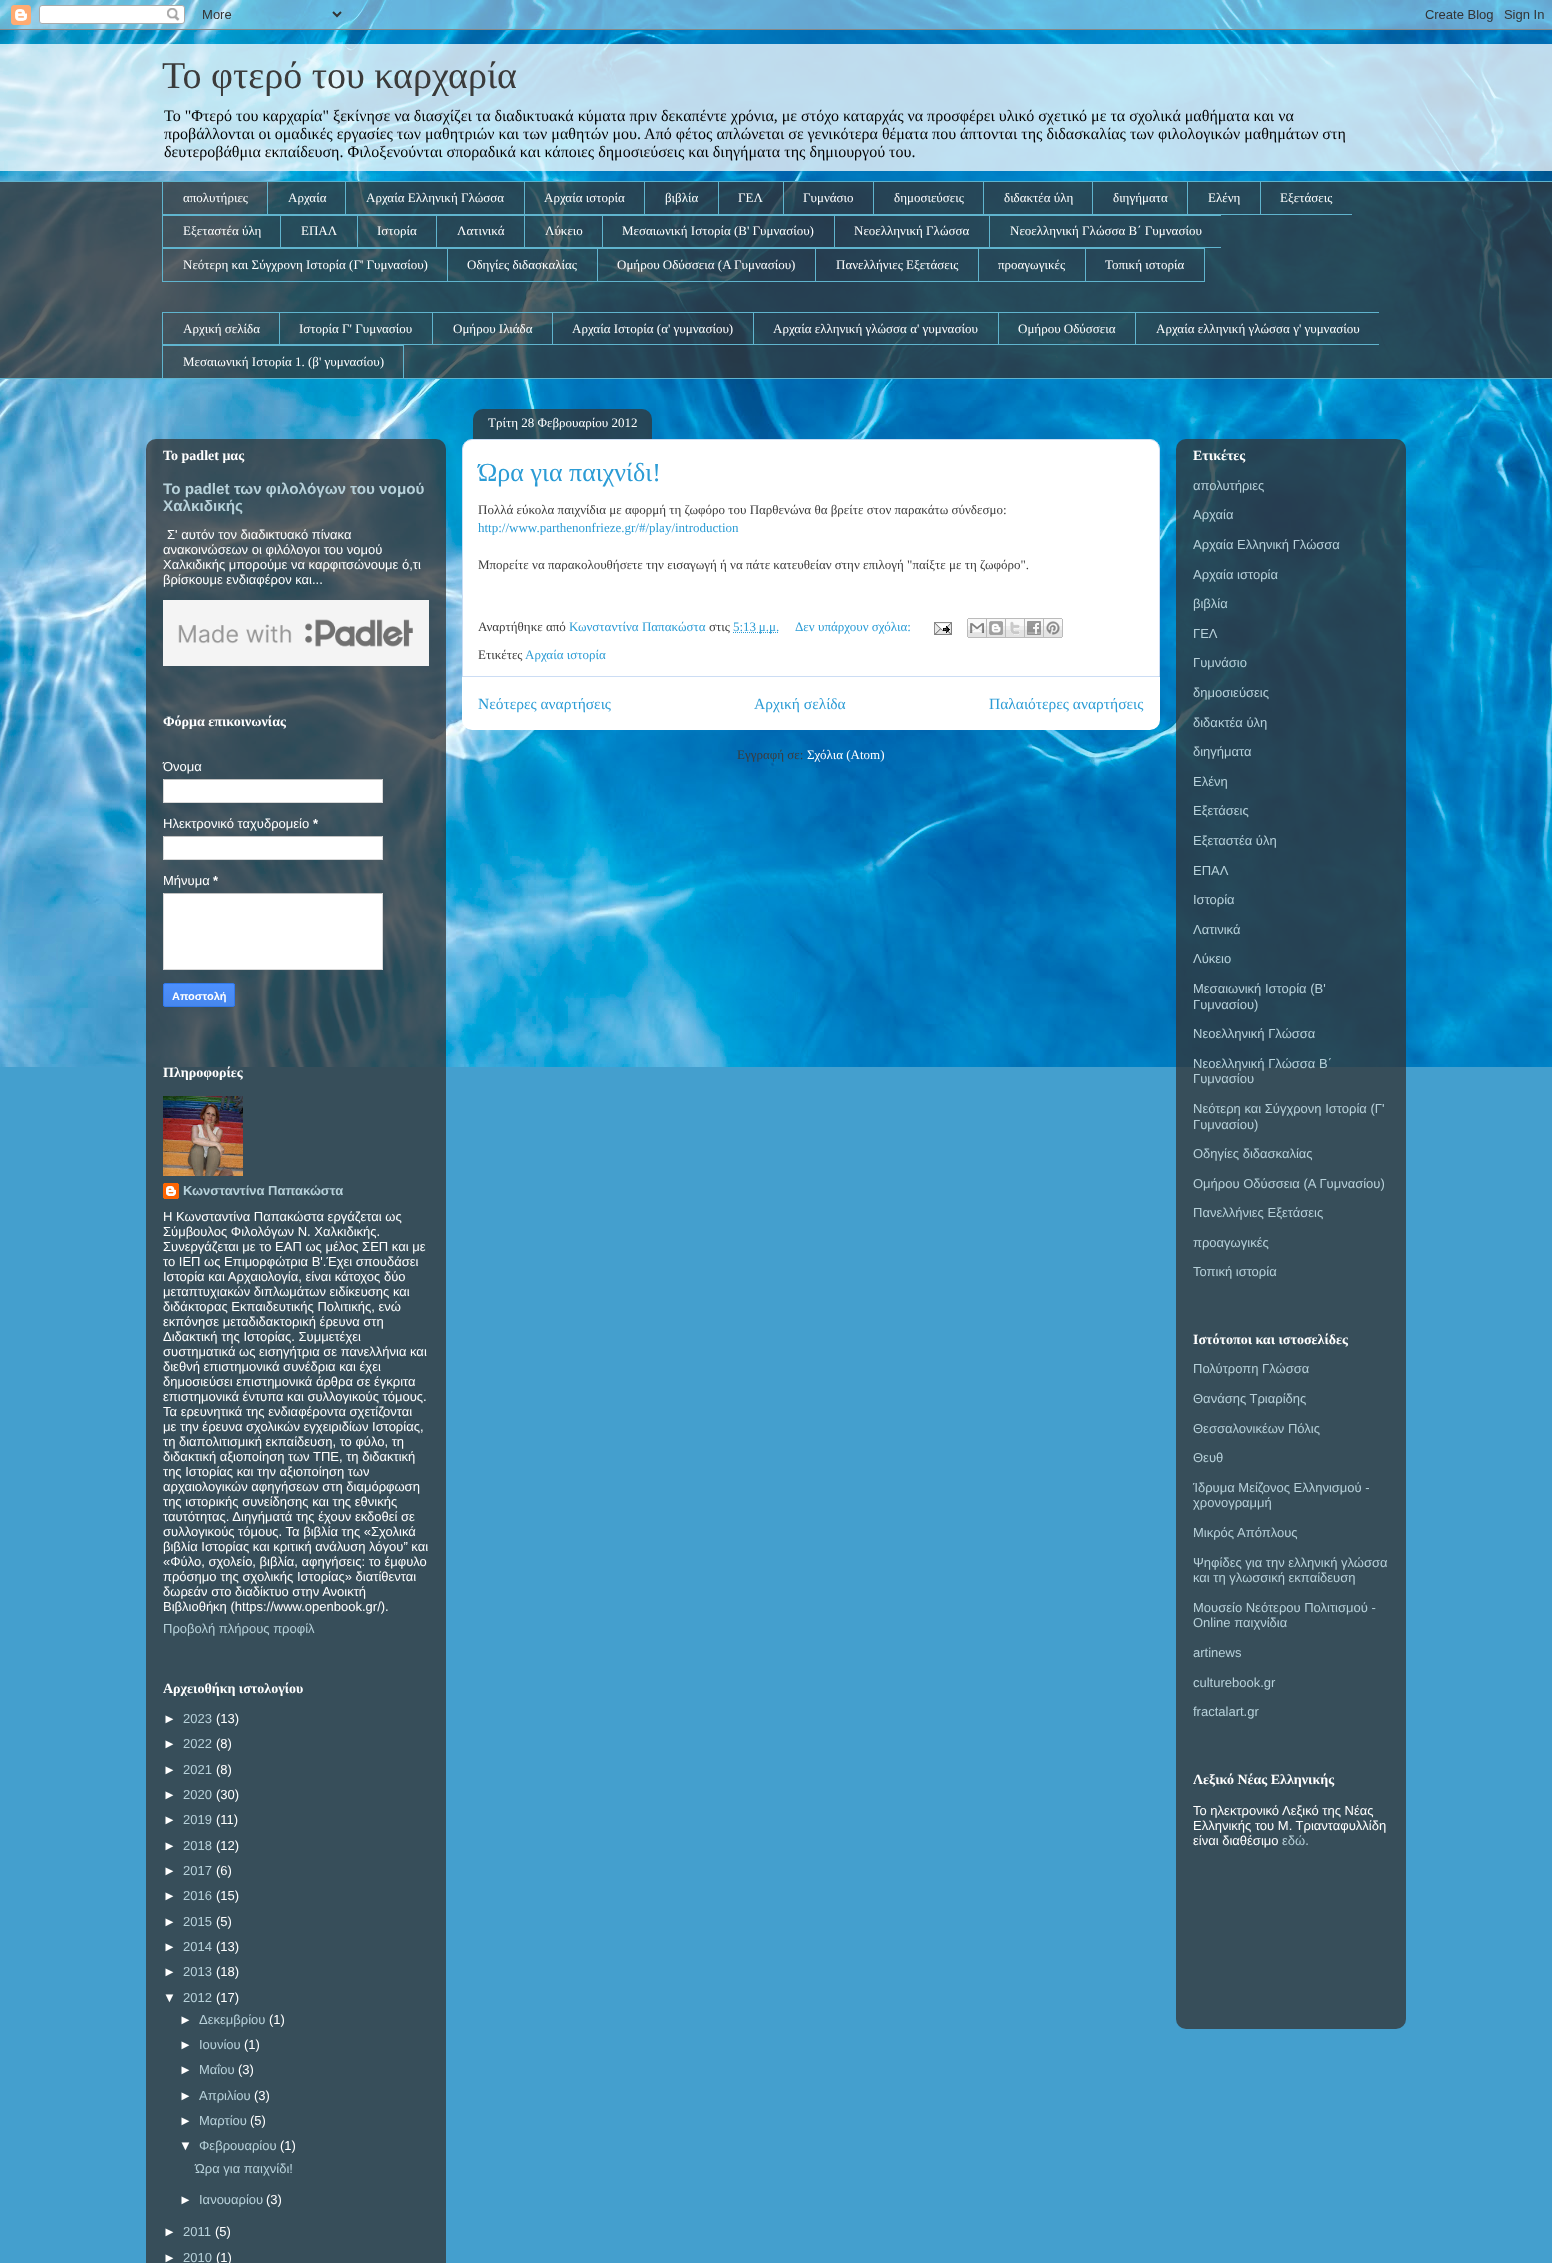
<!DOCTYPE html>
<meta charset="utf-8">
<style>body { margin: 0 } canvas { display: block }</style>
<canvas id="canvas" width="1552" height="2263"></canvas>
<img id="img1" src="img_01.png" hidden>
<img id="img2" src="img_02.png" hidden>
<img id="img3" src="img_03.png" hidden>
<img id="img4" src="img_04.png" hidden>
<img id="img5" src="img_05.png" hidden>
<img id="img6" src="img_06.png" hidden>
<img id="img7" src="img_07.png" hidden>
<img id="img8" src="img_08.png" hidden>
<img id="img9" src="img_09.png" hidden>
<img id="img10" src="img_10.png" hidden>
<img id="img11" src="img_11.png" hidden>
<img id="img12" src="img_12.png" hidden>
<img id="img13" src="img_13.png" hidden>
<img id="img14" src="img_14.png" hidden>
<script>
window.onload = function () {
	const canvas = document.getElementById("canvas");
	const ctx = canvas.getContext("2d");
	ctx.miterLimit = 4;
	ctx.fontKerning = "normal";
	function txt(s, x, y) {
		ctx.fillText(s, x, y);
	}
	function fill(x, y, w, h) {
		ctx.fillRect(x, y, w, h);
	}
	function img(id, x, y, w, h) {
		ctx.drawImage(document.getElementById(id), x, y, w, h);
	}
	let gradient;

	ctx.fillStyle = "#449FCE";
	fill(0, 0, 1552, 2263);
	img("img1", 0, 0, 1552, 1067);
	img("img2", 0, 0, 1552, 30);
	ctx.fillStyle = "rgba(255, 255, 255, 0.75)";
	fill(0, 44, 1552, 127);
	ctx.fillStyle = "rgba(51, 51, 51, 0.75)";
	fill(0, 182, 1552, 196);
	ctx.fillStyle = "#60B4CE";
	fill(0, 181, 1552, 1);
	fill(162, 214, 1190, 1);
	fill(162, 181, 1, 34);
	fill(267, 181, 1, 34);
	fill(345, 181, 1, 34);
	fill(524, 181, 1, 34);
	fill(644, 181, 1, 34);
	fill(718, 181, 1, 34);
	fill(783, 181, 1, 34);
	fill(873, 181, 1, 34);
	fill(983, 181, 1, 34);
	fill(1092, 181, 1, 34);
	fill(1187, 181, 1, 34);
	fill(1260, 181, 1, 34);
	fill(162, 215, 1059, 1);
	fill(162, 247, 1059, 1);
	fill(162, 215, 1, 33);
	fill(280, 215, 1, 33);
	fill(357, 215, 1, 33);
	fill(436, 215, 1, 33);
	fill(524, 215, 1, 33);
	fill(602, 215, 1, 33);
	fill(834, 215, 1, 33);
	fill(989, 215, 1, 33);
	fill(162, 248, 923, 1);
	fill(162, 281, 923, 1);
	fill(162, 248, 1, 34);
	fill(447, 248, 1, 34);
	fill(597, 248, 1, 34);
	fill(815, 248, 1, 34);
	fill(978, 248, 1, 34);
	ctx.strokeStyle = "#60B4CE";
	ctx.strokeRect(1085.5, 248.5, 119, 33);
	fill(162, 312, 1217, 1);
	fill(162, 344, 1217, 1);
	fill(162, 312, 1, 33);
	fill(279, 312, 1, 33);
	fill(432, 312, 1, 33);
	fill(552, 312, 1, 33);
	fill(753, 312, 1, 33);
	fill(998, 312, 1, 33);
	fill(1135, 312, 1, 33);
	ctx.strokeRect(162.5, 345.5, 241, 33);
	fill(0, 378, 1552, 1);
	img("img3", 146, 439, 300, 1824);
	img("img4", 163, 600, 266, 66);
	ctx.fillStyle = "#FFFFFF";
	fill(164, 780, 218, 22);
	ctx.fillStyle = "#C0C0C0";
	fill(163, 779, 220, 1);
	ctx.fillStyle = "#D9D9D9";
	fill(382, 779, 1, 24);
	fill(163, 802, 220, 1);
	fill(163, 779, 1, 24);
	ctx.fillStyle = "#FFFFFF";
	fill(164, 837, 218, 22);
	ctx.fillStyle = "#C0C0C0";
	fill(163, 836, 220, 1);
	ctx.fillStyle = "#D9D9D9";
	fill(382, 836, 1, 24);
	fill(163, 859, 220, 1);
	fill(163, 836, 1, 24);
	ctx.fillStyle = "#FFFFFF";
	fill(164, 894, 218, 75);
	ctx.fillStyle = "#C0C0C0";
	fill(163, 893, 220, 1);
	ctx.fillStyle = "#D9D9D9";
	fill(382, 893, 1, 77);
	fill(163, 969, 220, 1);
	fill(163, 893, 1, 77);
	ctx.save();
	ctx.beginPath();
	ctx.roundRect(163, 983, 72, 24, 2);
	ctx.clip();
	gradient = ctx.createLinearGradient(199, 984, 199, 1006);
	gradient.addColorStop(0, "#4D90FE");
	gradient.addColorStop(1, "#4787ED");
	ctx.fillStyle = gradient;
	fill(163, 984, 72, 22);
	ctx.restore();
	ctx.beginPath();
	ctx.roundRect(163.5, 983.5, 71, 23, 1.5);
	ctx.strokeStyle = "#3079ED";
	ctx.stroke();
	img("img5", 163, 1096, 80, 80);
	img("img6", 163, 1183, 16, 16);
	ctx.fillStyle = "#FFFFFF";
	ctx.beginPath();
	ctx.roundRect(462.5, 439.5, 697, 237, [9.5, 9.5, 0, 0]);
	ctx.fill();
	ctx.strokeStyle = "#CCDDF4";
	ctx.stroke();
	img("img7", 473, 409, 179, 30);
	ctx.beginPath();
	ctx.moveTo(733, 632.5);
	ctx.lineTo(779, 632.5);
	ctx.strokeStyle = "#2C9CD5";
	ctx.setLineDash([1, 1]);
	ctx.stroke();
	img("img8", 934, 622, 18, 13);
	img("img9", 967, 618, 20, 20);
	img("img10", 987, 618, 19, 20);
	img("img11", 1006, 618, 19, 20);
	img("img12", 1025, 618, 19, 20);
	img("img13", 1044, 618, 19, 20);
	ctx.beginPath();
	ctx.roundRect(462, 677, 698, 53, [0, 0, 10, 10]);
	ctx.fill();
	img("img14", 1176, 439, 230, 1590);
	ctx.font = "38px Liberation Serif";
	ctx.fillStyle = "#3B3B3B";
	txt("Το φτερό του καρχαρία", 162, 88);
	ctx.font = "16px Liberation Serif";
	ctx.fillStyle = "#000000";
	txt("Το \"Φτερό του καρχαρία\" ξεκίνησε να διασχίζει τα διαδικτυακά κύματα πριν δεκαπέντε χρόνια, με στόχο καταρχάς να προσφέρει υλικό σχετικό με τα σχολικά μαθήματα και να", 164, 121);
	txt("προβάλλονται οι ομαδικές εργασίες των μαθητριών και των μαθητών μου. Από φέτος απλώνεται σε γενικότερα θέματα που άπτονται της διδασκαλίας των φιλολογικών μαθημάτων στη", 164, 139);
	txt("δευτεροβάθμια εκπαίδευση. Φιλοξενούνται σποραδικά και κάποιες δημοσιεύσεις και διηγήματα της δημιουργού του.", 164, 157);
	ctx.font = "13px Liberation Serif";
	ctx.fillStyle = "#FFFFFF";
	txt("απολυτήριες", 183, 202);
	txt("Αρχαία", 288, 202);
	txt("Αρχαία Ελληνική Γλώσσα", 366, 202);
	txt("Αρχαία ιστορία", 544, 202);
	txt("βιβλία", 665, 202);
	txt("ΓΕΛ", 738, 202);
	txt("Γυμνάσιο", 803, 202);
	txt("δημοσιεύσεις", 894, 202);
	txt("διδακτέα ύλη", 1004, 202);
	txt("διηγήματα", 1113, 202);
	txt("Ελένη", 1208, 202);
	txt("Εξετάσεις", 1280, 202);
	txt("Εξεταστέα ύλη", 183, 235);
	txt("ΕΠΑΛ", 301, 235);
	txt("Ιστορία", 377, 235);
	txt("Λατινικά", 457, 235);
	txt("Λύκειο", 545, 235);
	txt("Μεσαιωνική Ιστορία (Β' Γυμνασίου)", 622, 235);
	txt("Νεοελληνική Γλώσσα", 854, 235);
	txt("Νεοελληνική Γλώσσα Β΄ Γυμνασίου", 1010, 235);
	txt("Νεότερη και Σύγχρονη Ιστορία (Γ' Γυμνασίου)", 183, 269);
	txt("Οδηγίες διδασκαλίας", 467, 269);
	txt("Ομήρου Οδύσσεια (Α Γυμνασίου)", 617, 269);
	txt("Πανελλήνιες Εξετάσεις", 836, 269);
	txt("προαγωγικές", 998, 269);
	txt("Τοπική ιστορία", 1105, 269);
	txt("Αρχική σελίδα", 183, 333);
	txt("Ιστορία Γ' Γυμνασίου", 299, 333);
	txt("Ομήρου Ιλιάδα", 453, 333);
	txt("Αρχαία Ιστορία (α' γυμνασίου)", 572, 333);
	txt("Αρχαία ελληνική γλώσσα α' γυμνασίου", 773, 333);
	txt("Ομήρου Οδύσσεια", 1018, 333);
	txt("Αρχαία ελληνική γλώσσα γ' γυμνασίου", 1156, 333);
	txt("Μεσαιωνική Ιστορία 1. (β' γυμνασίου)", 183, 366);
	ctx.font = "bold 14px Liberation Serif";
	txt("Το padlet μας", 163, 460);
	ctx.font = "bold 15.25px Liberation Sans";
	ctx.fillStyle = "#B7D1DA";
	txt("To padlet των φιλολόγων του νομού", 163, 494);
	txt("Χαλκιδικής", 163, 511);
	ctx.font = "13px Liberation Sans";
	ctx.fillStyle = "#FFFFFF";
	txt("Σ' αυτόν τον διαδικτυακό πίνακα", 167, 539);
	txt("ανακοινώσεων οι φιλόλογοι του νομού", 163, 554);
	txt("Χαλκιδικής μπορούμε να καρφιτσώνουμε ό,τι", 163, 569);
	txt("βρίσκουμε ενδιαφέρον και...", 163, 584);
	ctx.font = "bold 14px Liberation Serif";
	txt("Φόρμα επικοινωνίας", 163, 726);
	ctx.font = "13px Liberation Sans";
	txt("Όνομα", 163, 771);
	txt("Ηλεκτρονικό ταχυδρομείο", 163, 828);
	ctx.font = "bold 13px Liberation Sans";
	txt("*", 313, 828);
	ctx.font = "13px Liberation Sans";
	txt("Μήνυμα", 163, 885);
	ctx.font = "bold 13px Liberation Sans";
	txt("*", 213, 885);
	ctx.font = "bold 11px Liberation Sans";
	txt("Αποστολή", 172, 1000);
	ctx.font = "bold 14px Liberation Serif";
	txt("Πληροφορίες", 163, 1077);
	ctx.font = "bold 13px Liberation Sans";
	ctx.fillStyle = "#B7D1DA";
	txt("Κωνσταντίνα Παπακώστα", 183, 1195);
	ctx.font = "13px Liberation Sans";
	ctx.fillStyle = "#FFFFFF";
	txt("Η Κωνσταντίνα Παπακώστα εργάζεται ως", 163, 1221);
	txt("Σύμβουλος Φιλολόγων Ν. Χαλκιδικής.", 163, 1236);
	txt("Συνεργάζεται με το ΕΑΠ ως μέλος ΣΕΠ και με", 163, 1251);
	txt("το ΙΕΠ ως Επιμορφώτρια Β'.Έχει σπουδάσει", 163, 1266);
	txt("Ιστορία και Αρχαιολογία, είναι κάτοχος δύο", 163, 1281);
	txt("μεταπτυχιακών διπλωμάτων ειδίκευσης και", 163, 1296);
	txt("διδάκτορας Εκπαιδευτικής Πολιτικής, ενώ", 163, 1311);
	txt("εκπόνησε μεταδιδακτορική έρευνα στη", 163, 1326);
	txt("Διδακτική της Ιστορίας. Συμμετέχει", 163, 1341);
	txt("συστηματικά ως εισηγήτρια σε πανελλήνια και", 163, 1356);
	txt("διεθνή επιστημονικά συνέδρια και έχει", 163, 1371);
	txt("δημοσιεύσει επιστημονικά άρθρα σε έγκριτα", 163, 1386);
	txt("επιστημονικά έντυπα και συλλογικούς τόμους.", 163, 1401);
	txt("Τα ερευνητικά της ενδιαφέροντα σχετίζονται", 163, 1416);
	txt("με την έρευνα σχολικών εγχειριδίων Ιστορίας,", 163, 1431);
	txt("τη διαπολιτισμική εκπαίδευση, το φύλο, τη", 163, 1446);
	txt("διδακτική αξιοποίηση των ΤΠΕ, τη διδακτική", 163, 1461);
	txt("της Ιστορίας και την αξιοποίηση των", 163, 1476);
	txt("αρχαιολογικών αφηγήσεων στη διαμόρφωση", 163, 1491);
	txt("της ιστορικής συνείδησης και της εθνικής", 163, 1506);
	txt("ταυτότητας. Διηγήματά της έχουν εκδοθεί σε", 163, 1521);
	txt("συλλογικούς τόμους. Τα βιβλία της «Σχολικά", 163, 1536);
	txt("βιβλία Ιστορίας και κριτική ανάλυση λόγου” και", 163, 1551);
	txt("«Φύλο, σχολείο, βιβλία, αφηγήσεις: το έμφυλο", 163, 1566);
	txt("πρόσημο της σχολικής Ιστορίας» διατίθενται", 163, 1581);
	txt("δωρεάν στο διαδίκτυο στην Ανοικτή", 163, 1596);
	txt("Βιβλιοθήκη (https://www.openbook.gr/).", 163, 1611);
	ctx.fillStyle = "#B7D1DA";
	txt("Προβολή πλήρους προφίλ", 163, 1633);
	ctx.font = "bold 14px Liberation Serif";
	ctx.fillStyle = "#FFFFFF";
	txt("Αρχειοθήκη ιστολογίου", 163, 1693);
	ctx.font = "13px Liberation Sans";
	txt("►", 163, 1723);
	ctx.fillStyle = "#B7D1DA";
	txt("2023", 183, 1723);
	ctx.fillStyle = "#FFFFFF";
	txt("(13)", 216, 1723);
	txt("►", 163, 1748);
	ctx.fillStyle = "#B7D1DA";
	txt("2022", 183, 1748);
	ctx.fillStyle = "#FFFFFF";
	txt("(8)", 216, 1748);
	txt("►", 163, 1774);
	ctx.fillStyle = "#B7D1DA";
	txt("2021", 183, 1774);
	ctx.fillStyle = "#FFFFFF";
	txt("(8)", 216, 1774);
	txt("►", 163, 1799);
	ctx.fillStyle = "#B7D1DA";
	txt("2020", 183, 1799);
	ctx.fillStyle = "#FFFFFF";
	txt("(30)", 216, 1799);
	txt("►", 163, 1824);
	ctx.fillStyle = "#B7D1DA";
	txt("2019", 183, 1824);
	ctx.fillStyle = "#FFFFFF";
	txt("(11)", 216, 1824);
	txt("►", 163, 1850);
	ctx.fillStyle = "#B7D1DA";
	txt("2018", 183, 1850);
	ctx.fillStyle = "#FFFFFF";
	txt("(12)", 216, 1850);
	txt("►", 163, 1875);
	ctx.fillStyle = "#B7D1DA";
	txt("2017", 183, 1875);
	ctx.fillStyle = "#FFFFFF";
	txt("(6)", 216, 1875);
	txt("►", 163, 1900);
	ctx.fillStyle = "#B7D1DA";
	txt("2016", 183, 1900);
	ctx.fillStyle = "#FFFFFF";
	txt("(15)", 216, 1900);
	txt("►", 163, 1926);
	ctx.fillStyle = "#B7D1DA";
	txt("2015", 183, 1926);
	ctx.fillStyle = "#FFFFFF";
	txt("(5)", 216, 1926);
	txt("►", 163, 1951);
	ctx.fillStyle = "#B7D1DA";
	txt("2014", 183, 1951);
	ctx.fillStyle = "#FFFFFF";
	txt("(13)", 216, 1951);
	txt("►", 163, 1976);
	ctx.fillStyle = "#B7D1DA";
	txt("2013", 183, 1976);
	ctx.fillStyle = "#FFFFFF";
	txt("(18)", 216, 1976);
	txt("▼", 163, 2002);
	ctx.fillStyle = "#B7D1DA";
	txt("2012", 183, 2002);
	ctx.fillStyle = "#FFFFFF";
	txt("(17)", 216, 2002);
	txt("►", 179, 2024);
	ctx.fillStyle = "#B7D1DA";
	txt("Δεκεμβρίου", 199, 2024);
	ctx.fillStyle = "#FFFFFF";
	txt("(1)", 269, 2024);
	txt("►", 179, 2049);
	ctx.fillStyle = "#B7D1DA";
	txt("Ιουνίου", 199, 2049);
	ctx.fillStyle = "#FFFFFF";
	txt("(1)", 244, 2049);
	txt("►", 179, 2074);
	ctx.fillStyle = "#B7D1DA";
	txt("Μαΐου", 199, 2074);
	ctx.fillStyle = "#FFFFFF";
	txt("(3)", 238, 2074);
	txt("►", 179, 2100);
	ctx.fillStyle = "#B7D1DA";
	txt("Απριλίου", 199, 2100);
	ctx.fillStyle = "#FFFFFF";
	txt("(3)", 254, 2100);
	txt("►", 179, 2125);
	ctx.fillStyle = "#B7D1DA";
	txt("Μαρτίου", 199, 2125);
	ctx.fillStyle = "#FFFFFF";
	txt("(5)", 250, 2125);
	txt("▼", 179, 2150);
	ctx.fillStyle = "#B7D1DA";
	txt("Φεβρουαρίου", 199, 2150);
	ctx.fillStyle = "#FFFFFF";
	txt("(1)", 280, 2150);
	ctx.fillStyle = "#B7D1DA";
	txt("Ώρα για παιχνίδι!", 195, 2173);
	ctx.fillStyle = "#FFFFFF";
	txt("►", 179, 2204);
	ctx.fillStyle = "#B7D1DA";
	txt("Ιανουαρίου", 199, 2204);
	ctx.fillStyle = "#FFFFFF";
	txt("(3)", 266, 2204);
	txt("►", 163, 2236);
	ctx.fillStyle = "#B7D1DA";
	txt("2011", 183, 2236);
	ctx.fillStyle = "#FFFFFF";
	txt("(5)", 215, 2236);
	txt("►", 163, 2262);
	ctx.fillStyle = "#B7D1DA";
	txt("2010", 183, 2262);
	ctx.fillStyle = "#FFFFFF";
	txt("(1)", 216, 2262);
	ctx.font = "13px Liberation Serif";
	txt("Τρίτη 28 Φεβρουαρίου 2012", 488, 427);
	ctx.font = "26px Liberation Serif";
	ctx.fillStyle = "#2C9CD5";
	txt("Ώρα για παιχνίδι!", 478, 481);
	ctx.font = "13px Liberation Serif";
	ctx.fillStyle = "#3B3B3B";
	txt("Πολλά εύκολα παιχνίδια με αφορμή τη ζωφόρο του Παρθενώνα θα βρείτε στον παρακάτω σύνδεσμο:", 478, 514);
	ctx.fillStyle = "#2C9CD5";
	txt("http://www.parthenonfrieze.gr/#/play/introduction", 478, 532);
	ctx.fillStyle = "#3B3B3B";
	txt("Μπορείτε να παρακολουθήσετε την εισαγωγή ή να πάτε κατευθείαν στην επιλογή \"παίξτε με τη ζωφόρο\".", 478, 569);
	txt("Αναρτήθηκε από", 478, 631);
	ctx.fillStyle = "#2C9CD5";
	txt("Κωνσταντίνα Παπακώστα", 569, 631);
	ctx.fillStyle = "#3B3B3B";
	txt("στις", 709, 631);
	ctx.fillStyle = "#2C9CD5";
	txt("5:13 μ.μ.", 733, 631);
	txt("Δεν υπάρχουν σχόλια:", 795, 631);
	ctx.fillStyle = "#3B3B3B";
	txt("Ετικέτες", 478, 659);
	ctx.fillStyle = "#2C9CD5";
	txt("Αρχαία ιστορία", 525, 659);
	ctx.font = "15.5px Liberation Serif";
	txt("Νεότερες αναρτήσεις", 478, 709);
	txt("Αρχική σελίδα", 754, 709);
	txt("Παλαιότερες αναρτήσεις", 989, 709);
	ctx.font = "13px Liberation Serif";
	ctx.fillStyle = "#3B3B3B";
	txt("Εγγραφή σε:", 737, 759);
	ctx.fillStyle = "#FFFFFF";
	txt("Σχόλια (Atom)", 807, 759);
	ctx.font = "bold 14px Liberation Serif";
	txt("Ετικέτες", 1193, 460);
	ctx.font = "13px Liberation Sans";
	ctx.fillStyle = "#B7D1DA";
	txt("απολυτήριες", 1193, 490);
	txt("Αρχαία", 1193, 519);
	txt("Αρχαία Ελληνική Γλώσσα", 1193, 549);
	txt("Αρχαία ιστορία", 1193, 579);
	txt("βιβλία", 1193, 608);
	txt("ΓΕΛ", 1193, 638);
	txt("Γυμνάσιο", 1193, 667);
	txt("δημοσιεύσεις", 1193, 697);
	txt("διδακτέα ύλη", 1193, 727);
	txt("διηγήματα", 1193, 756);
	txt("Ελένη", 1193, 786);
	txt("Εξετάσεις", 1193, 815);
	txt("Εξεταστέα ύλη", 1193, 845);
	txt("ΕΠΑΛ", 1193, 875);
	txt("Ιστορία", 1193, 904);
	txt("Λατινικά", 1193, 934);
	txt("Λύκειο", 1193, 963);
	txt("Μεσαιωνική Ιστορία (Β'", 1193, 993);
	txt("Γυμνασίου)", 1193, 1009);
	txt("Νεοελληνική Γλώσσα", 1193, 1038);
	txt("Νεοελληνική Γλώσσα Β΄", 1193, 1068);
	txt("Γυμνασίου", 1193, 1083);
	txt("Νεότερη και Σύγχρονη Ιστορία (Γ'", 1193, 1113);
	txt("Γυμνασίου)", 1193, 1129);
	txt("Οδηγίες διδασκαλίας", 1193, 1158);
	txt("Ομήρου Οδύσσεια (Α Γυμνασίου)", 1193, 1188);
	txt("Πανελλήνιες Εξετάσεις", 1193, 1217);
	txt("προαγωγικές", 1193, 1247);
	txt("Τοπική ιστορία", 1193, 1276);
	ctx.font = "bold 14px Liberation Serif";
	ctx.fillStyle = "#FFFFFF";
	txt("Ιστότοποι και ιστοσελίδες", 1193, 1344);
	ctx.font = "13px Liberation Sans";
	ctx.fillStyle = "#B7D1DA";
	txt("Πολύτροπη Γλώσσα", 1193, 1373);
	txt("Θανάσης Τριαρίδης", 1193, 1403);
	txt("Θεσσαλονικέων Πόλις", 1193, 1433);
	txt("Θευθ", 1193, 1462);
	txt("Ίδρυμα Μείζονος Ελληνισμού -", 1193, 1492);
	txt("χρονογραμμή", 1193, 1507);
	txt("Μικρός Απόπλους", 1193, 1537);
	txt("Ψηφίδες για την ελληνική γλώσσα", 1193, 1567);
	txt("και τη γλωσσική εκπαίδευση", 1193, 1582);
	txt("Μουσείο Νεότερου Πολιτισμού -", 1193, 1612);
	txt("Online παιχνίδια", 1193, 1627);
	txt("artinews", 1193, 1657);
	txt("culturebook.gr", 1193, 1687);
	txt("fractalart.gr", 1193, 1716);
	ctx.font = "bold 14px Liberation Serif";
	ctx.fillStyle = "#FFFFFF";
	txt("Λεξικό Νέας Ελληνικής", 1193, 1784);
	ctx.font = "13px Liberation Sans";
	txt("Το ηλεκτρονικό Λεξικό της Νέας", 1193, 1815);
	txt("Ελληνικής του Μ. Τριανταφυλλίδη", 1193, 1830);
	txt("είναι διαθέσιμο", 1193, 1845);
	ctx.fillStyle = "#B7D1DA";
	txt("εδώ.", 1282, 1845);
};
</script>
